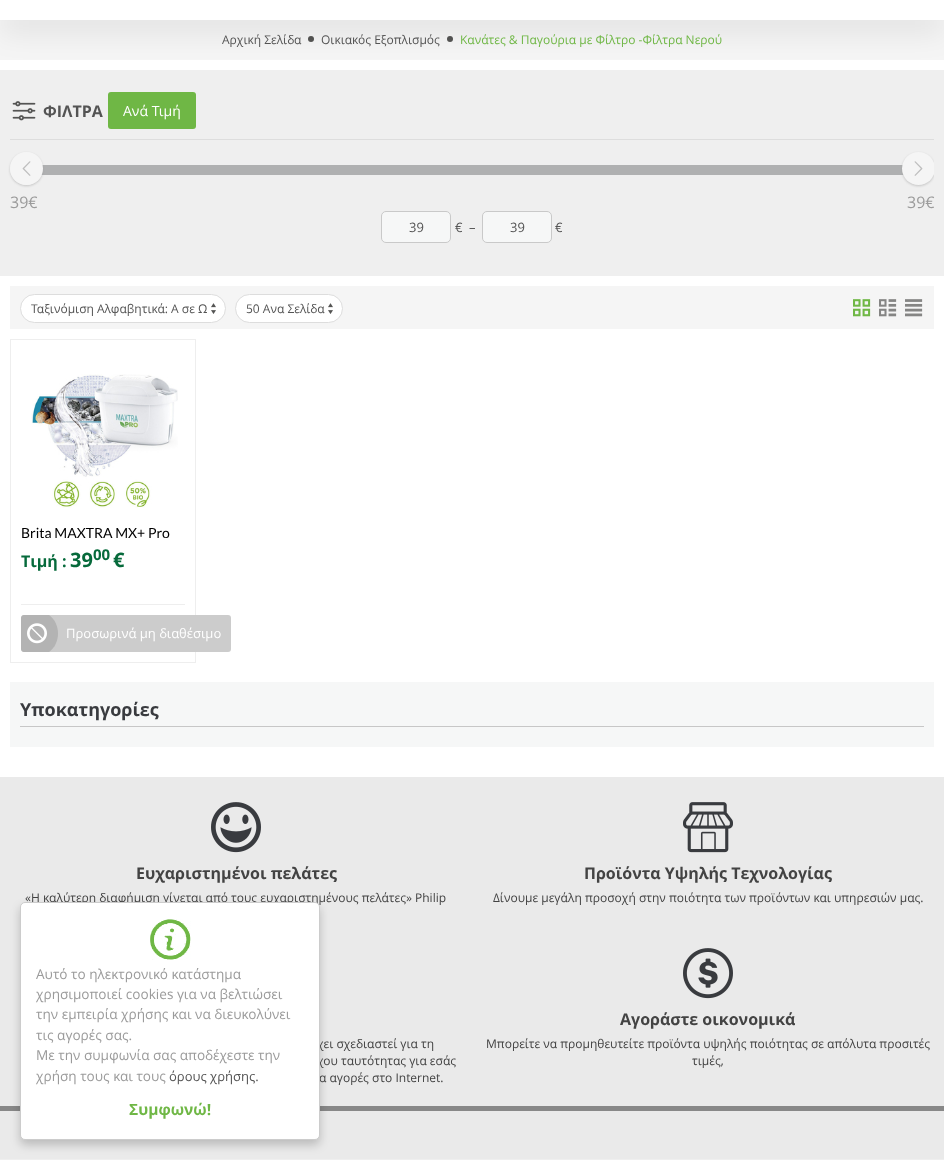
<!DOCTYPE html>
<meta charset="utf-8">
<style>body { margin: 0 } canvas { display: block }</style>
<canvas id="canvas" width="944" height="1160"></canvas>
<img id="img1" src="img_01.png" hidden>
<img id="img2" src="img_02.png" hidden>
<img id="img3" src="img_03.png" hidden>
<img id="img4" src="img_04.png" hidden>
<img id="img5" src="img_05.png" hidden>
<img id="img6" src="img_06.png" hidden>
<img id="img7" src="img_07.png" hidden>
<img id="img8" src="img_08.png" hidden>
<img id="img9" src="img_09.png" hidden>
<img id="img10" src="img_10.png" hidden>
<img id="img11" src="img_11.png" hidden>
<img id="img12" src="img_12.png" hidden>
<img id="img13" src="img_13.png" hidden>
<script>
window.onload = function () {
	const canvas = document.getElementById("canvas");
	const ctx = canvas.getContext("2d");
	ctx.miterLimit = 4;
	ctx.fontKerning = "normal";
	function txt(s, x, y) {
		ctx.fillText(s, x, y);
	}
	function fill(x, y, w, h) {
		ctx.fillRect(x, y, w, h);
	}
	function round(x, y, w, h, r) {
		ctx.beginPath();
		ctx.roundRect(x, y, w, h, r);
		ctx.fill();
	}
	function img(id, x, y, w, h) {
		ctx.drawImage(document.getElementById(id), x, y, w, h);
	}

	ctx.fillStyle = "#FFFFFF";
	fill(0, 0, 944, 1160);
	ctx.fillStyle = "#F5F5F5";
	fill(0, 20, 944, 40);
	ctx.fillStyle = "#545453";
	ctx.beginPath();
	ctx.arc(311, 39, 3, 0, Math.PI * 2);
	ctx.fill();
	ctx.beginPath();
	ctx.arc(450, 39, 3, 0, Math.PI * 2);
	ctx.fill();
	ctx.fillStyle = "#EFEFEF";
	fill(0, 70, 944, 206);
	ctx.fillStyle = "rgba(0, 0, 0, 0.1)";
	ctx.filter = "blur(15px)";
	ctx.beginPath();
	ctx.rect(0, 10, 944, 20);
	ctx.fill();
	ctx.filter = "none";
	ctx.fillStyle = "#FFFFFF";
	fill(0, 0, 944, 20);
	ctx.fillStyle = "#DDDDDD";
	fill(10, 139, 924, 1);
	img("img1", 12, 101, 24, 20);
	ctx.fillStyle = "#6FB745";
	round(108, 92, 88, 37, 3);
	ctx.fillStyle = "#AFB0B1";
	fill(41, 165, 863, 10);
	ctx.save();
	ctx.beginPath();
	ctx.moveTo(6, 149);
	ctx.lineTo(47, 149);
	ctx.lineTo(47, 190);
	ctx.lineTo(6, 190);
	ctx.closePath();
	ctx.moveTo(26.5, 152);
	ctx.bezierCurveTo(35.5, 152, 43, 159.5, 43, 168.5);
	ctx.bezierCurveTo(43, 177.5, 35.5, 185, 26.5, 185);
	ctx.bezierCurveTo(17.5, 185, 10, 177.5, 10, 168.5);
	ctx.bezierCurveTo(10, 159.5, 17.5, 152, 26.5, 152);
	ctx.closePath();
	ctx.clip("evenodd");
	ctx.fillStyle = "rgba(155, 155, 155, 0.5)";
	ctx.filter = "blur(1px)";
	ctx.beginPath();
	ctx.roundRect(10, 153, 33, 33, 16.5);
	ctx.fill();
	ctx.filter = "none";
	ctx.restore();
	ctx.fillStyle = "#F5F5F5";
	ctx.beginPath();
	ctx.arc(26.5, 168.5, 16.5, 0, Math.PI * 2);
	ctx.fill();
	img("img2", 22, 161, 9, 15);
	ctx.save();
	ctx.beginPath();
	ctx.rect(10, 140, 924, 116);
	ctx.clip();
	ctx.fillStyle = "rgba(155, 155, 155, 0.5)";
	ctx.filter = "blur(1px)";
	ctx.beginPath();
	ctx.roundRect(902, 153, 33, 33, 16.5);
	ctx.fill();
	ctx.filter = "none";
	ctx.restore();
	ctx.save();
	ctx.beginPath();
	ctx.rect(10, 140, 924, 116);
	ctx.clip();
	ctx.beginPath();
	ctx.arc(918.5, 168.5, 16.5, 0, Math.PI * 2);
	ctx.fill();
	ctx.restore();
	img("img3", 914, 161, 9, 15);
	ctx.fillStyle = "#F6F7F7";
	ctx.beginPath();
	ctx.roundRect(381.5, 211.5, 69, 31, 4.5);
	ctx.fill();
	ctx.strokeStyle = "#C9C9C9";
	ctx.stroke();
	ctx.beginPath();
	ctx.roundRect(482.5, 211.5, 69, 31, 4.5);
	ctx.fill();
	ctx.stroke();
	ctx.fillStyle = "#F5F5F5";
	fill(10, 286, 924, 43);
	ctx.fillStyle = "#FFFFFF";
	ctx.beginPath();
	ctx.roundRect(20.5, 294.5, 205, 28, 14);
	ctx.fill();
	ctx.strokeStyle = "#DDDDDD";
	ctx.stroke();
	img("img4", 211, 303, 5, 11);
	ctx.beginPath();
	ctx.roundRect(235.5, 294.5, 107, 28, 14);
	ctx.fill();
	ctx.stroke();
	img("img4", 328, 303, 5, 11);
	img("img5", 853, 299, 18, 18);
	img("img6", 879, 299, 18, 18);
	img("img7", 905, 299, 18, 18);
	ctx.strokeStyle = "#EEEEEE";
	ctx.strokeRect(10.5, 339.5, 185, 323);
	img("img8", 31, 374, 147, 134);
	ctx.fillStyle = "#EEEEEE";
	fill(21, 604, 164, 1);
	ctx.fillStyle = "#CCCCCC";
	round(21, 615, 210, 37, 3);
	ctx.fillStyle = "#B3B3B3";
	ctx.beginPath();
	ctx.moveTo(24, 615);
	ctx.bezierCurveTo(22.5, 615, 21, 616.5, 21, 618);
	ctx.lineTo(21, 649);
	ctx.bezierCurveTo(21, 650.5, 22.5, 652, 24, 652);
	ctx.lineTo(49, 652);
	ctx.bezierCurveTo(61, 643.5, 61, 623.5, 49, 615);
	ctx.closePath();
	ctx.fill();
	img("img9", 27, 623, 20, 21);
	ctx.fillStyle = "#F6F7F7";
	fill(10, 682, 924, 65);
	ctx.fillStyle = "#C7C7C7";
	fill(20, 726, 904, 1);
	ctx.fillStyle = "#EAEAEA";
	fill(0, 777, 944, 329);
	img("img10", 211, 802, 50, 51);
	img("img11", 683, 802, 50, 51);
	img("img12", 683, 948, 50, 51);
	fill(0, 1111, 944, 48);
	ctx.fillStyle = "#888888";
	fill(0, 1106, 944, 5);
	ctx.fillStyle = "#EFEFEF";
	fill(0, 1159, 944, 1);
	ctx.fillStyle = "rgba(0, 0, 0, 0.2)";
	ctx.filter = "blur(5px)";
	ctx.beginPath();
	ctx.roundRect(20, 907, 300, 238, 5);
	ctx.fill();
	ctx.filter = "none";
	ctx.font = "12px 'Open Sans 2'";
	ctx.fillStyle = "#545454";
	txt("Αρχική Σελίδα", 222, 44);
	txt("Οικιακός Εξοπλισμός", 321, 44);
	ctx.fillStyle = "#6FB745";
	txt("Κανάτες & Παγούρια με Φίλτρο -Φίλτρα Νερού", 460, 44);
	ctx.font = "bold 16px Open Sans";
	ctx.fillStyle = "#545454";
	txt("ΦΙΛΤΡΑ", 43, 117);
	ctx.font = "14px 'Open Sans 2'";
	ctx.fillStyle = "#FFFFFF";
	txt("Ανά Τιμή", 123, 116);
	ctx.font = "16px Open Sans";
	ctx.fillStyle = "#9B9B9B";
	txt("39€", 10, 208);
	txt("39€", 907, 208);
	ctx.font = "13px Open Sans";
	ctx.fillStyle = "#545454";
	txt("39", 409, 232);
	txt("€", 455, 232);
	txt("–", 469, 232);
	txt("39", 510, 232);
	txt("€", 555, 232);
	ctx.font = "12px 'Open Sans 2'";
	txt("Ταξινόμιση Αλφαβητικά: A σε Ω", 31, 313);
	txt("50 Ανα Σελίδα", 246, 313);
	ctx.font = "14px Lato";
	ctx.fillStyle = "#000000";
	txt("Brita MAXTRA MX+ Pro", 21, 538);
	ctx.font = "bold 16px Open Sans";
	ctx.fillStyle = "#066A3B";
	txt("Τιμή :", 21, 567);
	ctx.font = "bold 20px Open Sans";
	txt("39", 70, 567);
	ctx.font = "bold 15px Open Sans";
	txt("00", 93, 560);
	ctx.font = "bold 20px Open Sans";
	txt("€", 113, 567);
	ctx.font = "13px 'Open Sans 2'";
	ctx.fillStyle = "#FFFFFF";
	txt("Προσωρινά μη διαθέσιμο", 66, 638);
	ctx.font = "bold 18px Open Sans";
	ctx.fillStyle = "#393B3F";
	txt("Υποκατηγορίες", 20, 716);
	ctx.font = "bold 16px Open Sans";
	ctx.fillStyle = "#434343";
	txt("Ευχαριστημένοι πελάτες", 136, 879);
	ctx.font = "12px 'Open Sans 2'";
	txt("«Η καλύτερη διαφήμιση γίνεται από τους ευχαριστημένους πελάτες» Philip", 25, 902);
	ctx.font = "bold 16px Open Sans";
	txt("Προϊόντα Υψηλής Τεχνολογίας", 584, 879);
	ctx.font = "12px 'Open Sans 2'";
	txt("Δίνουμε μεγάλη προσοχή στην ποιότητα των προϊόντων και υπηρεσιών μας.", 493, 902);
	txt("χει σχεδιαστεί για τη", 317, 1048);
	txt("χου ταυτότητας για εσάς", 317, 1065);
	txt("α αγορές στο Internet.", 319, 1082);
	ctx.font = "bold 16px Open Sans";
	txt("Αγοράστε οικονομικά", 620, 1025);
	ctx.font = "12px 'Open Sans 2'";
	txt("Μπορείτε να προμηθευτείτε προϊόντα υψηλής ποιότητας σε απόλυτα προσιτές", 486, 1048);
	txt("τιμές,", 692, 1065);
	ctx.fillStyle = "#FFFFFF";
	ctx.beginPath();
	ctx.roundRect(20.5, 902.5, 299, 237, 4.5);
	ctx.fill();
	ctx.strokeStyle = "#CCCCCC";
	ctx.stroke();
	img("img13", 150, 919, 41, 41);
	ctx.font = "13.6px 'Open Sans 2'";
	ctx.fillStyle = "#9B9B9B";
	txt("Αυτό το ηλεκτρονικό κατάστημα", 36, 979);
	txt("χρησιμοποιεί cookies για να βελτιώσει", 36, 999);
	txt("την εμπειρία χρήσης και να διευκολύνει", 36, 1019);
	txt("τις αγορές σας.", 36, 1040);
	txt("Με την συμφωνία σας αποδέχεστε την", 36, 1060);
	txt("χρήση τους και τους", 36, 1081);
	ctx.font = "13px 'Open Sans 2'";
	ctx.fillStyle = "#545454";
	txt("όρους χρήσης.", 169, 1081);
	ctx.font = "bold 15.5px Open Sans";
	ctx.fillStyle = "#6FB745";
	txt("Συμφωνώ!", 129, 1115);
};
</script>
